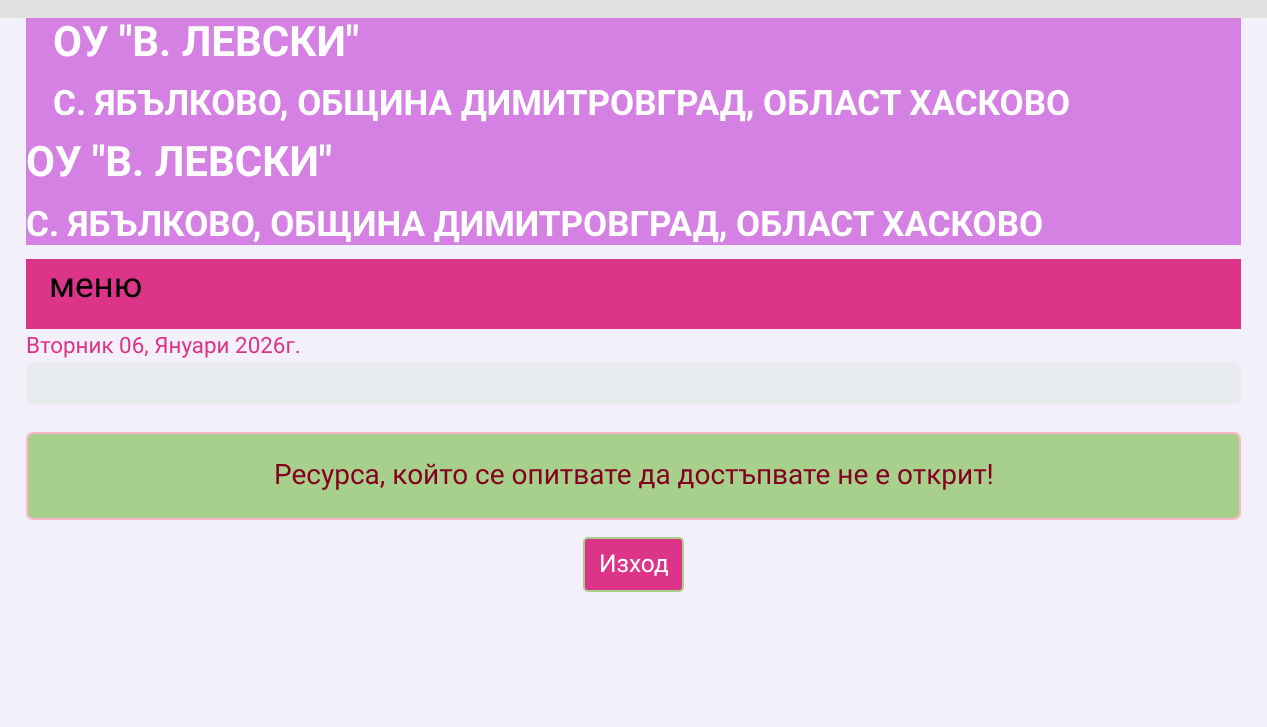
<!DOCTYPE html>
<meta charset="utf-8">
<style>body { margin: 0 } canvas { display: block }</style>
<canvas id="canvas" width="1267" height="727"></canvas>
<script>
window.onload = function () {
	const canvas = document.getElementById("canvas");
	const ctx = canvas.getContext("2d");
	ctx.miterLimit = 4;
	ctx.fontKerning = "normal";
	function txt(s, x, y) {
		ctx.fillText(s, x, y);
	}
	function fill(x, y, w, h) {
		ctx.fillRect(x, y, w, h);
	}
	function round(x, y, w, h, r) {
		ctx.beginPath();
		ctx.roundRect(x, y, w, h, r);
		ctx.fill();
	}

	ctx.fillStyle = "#E2E2E2";
	fill(0, 0, 1267, 727);
	ctx.fillStyle = "#F3F0FB";
	fill(0, 18, 1267, 709);
	ctx.fillStyle = "#D581E3";
	fill(26, 18, 1215, 227);
	ctx.fillStyle = "#DC3488";
	fill(26, 259, 1215, 70);
	ctx.fillStyle = "#E9ECEF";
	round(26, 362, 1215, 42, 7);
	ctx.fillStyle = "#A8D08D";
	ctx.beginPath();
	ctx.roundRect(27, 433, 1213, 86, 6);
	ctx.fill();
	ctx.strokeStyle = "#FFB8C8";
	ctx.lineWidth = 2;
	ctx.stroke();
	ctx.fillStyle = "#DC3488";
	ctx.beginPath();
	ctx.roundRect(584, 538, 99, 53, 4);
	ctx.fill();
	ctx.strokeStyle = "#A8D08D";
	ctx.stroke();
	ctx.font = "bold 42px Roboto";
	ctx.fillStyle = "#FFFFFF";
	txt("ОУ \"В. ЛЕВСКИ\"", 53, 56);
	ctx.font = "bold 35px Roboto";
	txt("С. ЯБЪЛКОВО, ОБЩИНА ДИМИТРОВГРАД, ОБЛАСТ ХАСКОВО", 53, 115);
	ctx.font = "bold 42px Roboto";
	txt("ОУ \"В. ЛЕВСКИ\"", 26, 176);
	ctx.font = "bold 35px Roboto";
	txt("С. ЯБЪЛКОВО, ОБЩИНА ДИМИТРОВГРАД, ОБЛАСТ ХАСКОВО", 26, 236);
	ctx.font = "35px Roboto";
	ctx.fillStyle = "#000000";
	txt("меню", 49, 297);
	ctx.font = "22.4px Roboto";
	ctx.fillStyle = "#DC3488";
	txt("Вторник 06, Януари 2026г.", 26, 353);
	ctx.font = "28px Roboto";
	ctx.fillStyle = "#85001E";
	txt("Ресурса, който се опитвате да достъпвате не е открит!", 274, 484);
	ctx.font = "24.5px Roboto";
	ctx.fillStyle = "#FFFFFF";
	txt("Изход", 599, 572);
};
</script>
